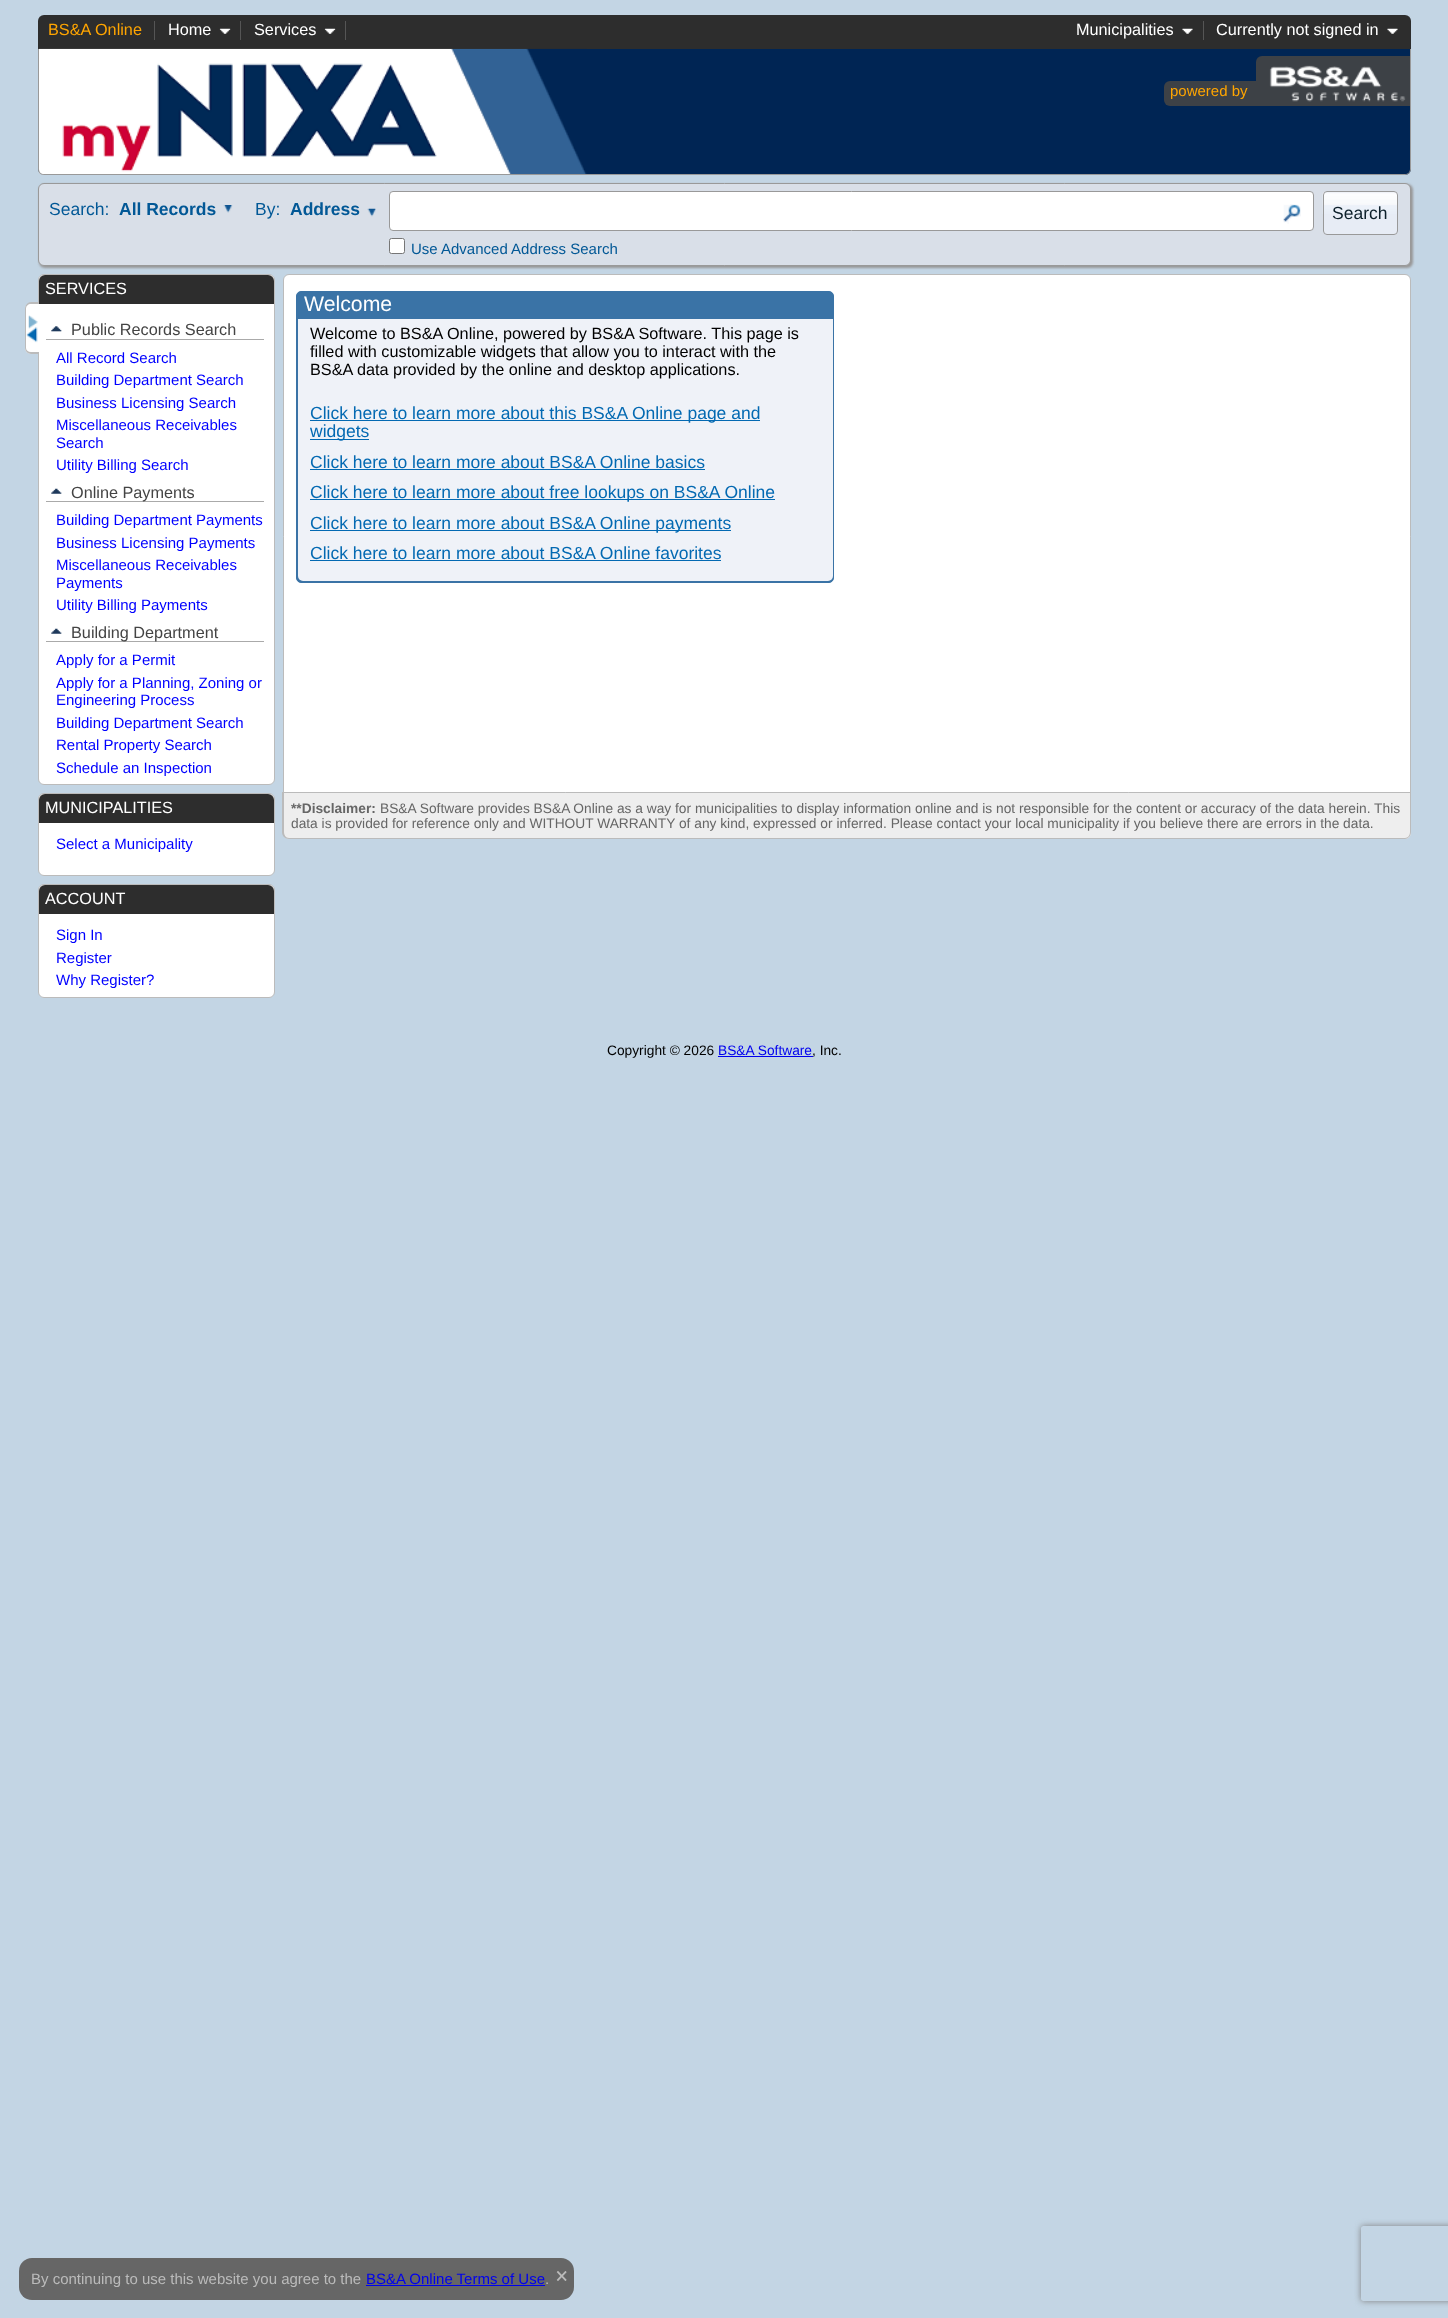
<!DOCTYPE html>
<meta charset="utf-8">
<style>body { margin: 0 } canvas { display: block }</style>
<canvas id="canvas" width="1448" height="2318"></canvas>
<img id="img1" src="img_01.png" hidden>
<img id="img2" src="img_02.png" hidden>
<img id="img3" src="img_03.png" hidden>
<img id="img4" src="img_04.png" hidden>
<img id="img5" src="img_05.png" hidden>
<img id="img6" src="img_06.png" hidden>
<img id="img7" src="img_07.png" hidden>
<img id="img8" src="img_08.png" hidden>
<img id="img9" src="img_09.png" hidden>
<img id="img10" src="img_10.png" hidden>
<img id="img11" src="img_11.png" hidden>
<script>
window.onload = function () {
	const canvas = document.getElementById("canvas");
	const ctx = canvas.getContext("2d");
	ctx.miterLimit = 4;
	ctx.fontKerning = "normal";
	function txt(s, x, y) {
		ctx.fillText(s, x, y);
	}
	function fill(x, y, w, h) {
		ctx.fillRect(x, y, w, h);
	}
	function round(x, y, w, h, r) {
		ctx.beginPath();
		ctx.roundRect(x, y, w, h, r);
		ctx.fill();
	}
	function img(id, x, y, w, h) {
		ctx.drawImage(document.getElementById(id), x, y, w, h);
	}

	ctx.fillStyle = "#C3D5E4";
	fill(0, 0, 1448, 2318);
	ctx.fillStyle = "#2D2D2D";
	ctx.beginPath();
	ctx.roundRect(38, 15, 1373, 34, [6, 6, 0, 0]);
	ctx.fill();
	ctx.fillStyle = "#555555";
	fill(154, 21, 1, 19);
	img("img1", 219, 28, 12, 6);
	fill(240, 21, 1, 19);
	img("img1", 324, 28, 12, 6);
	fill(345, 21, 1, 19);
	img("img2", 1182, 28, 11, 6);
	fill(1203, 21, 1, 19);
	img("img2", 1387, 28, 11, 6);
	ctx.fillStyle = "#002554";
	ctx.beginPath();
	ctx.roundRect(38, 49, 1373, 126, [0, 0, 6, 6]);
	ctx.fill();
	img("img3", 38, 48, 549, 127);
	ctx.fillStyle = "#999999";
	ctx.beginPath();
	ctx.moveTo(38, 49);
	ctx.lineTo(1411, 49);
	ctx.lineTo(1411, 169);
	ctx.bezierCurveTo(1411, 172, 1408, 175, 1405, 175);
	ctx.lineTo(44, 175);
	ctx.bezierCurveTo(40, 175, 38, 172, 38, 169);
	ctx.closePath();
	ctx.moveTo(39, 49);
	ctx.lineTo(1410, 49);
	ctx.lineTo(1410, 169);
	ctx.bezierCurveTo(1410, 172, 1408, 174, 1405, 174);
	ctx.lineTo(44, 174);
	ctx.bezierCurveTo(41, 174, 39, 172, 39, 169);
	ctx.closePath();
	ctx.fill("evenodd");
	ctx.fillStyle = "#3D4146";
	ctx.beginPath();
	ctx.roundRect(1164, 81, 92, 25, [6, 0, 0, 6]);
	ctx.fill();
	ctx.beginPath();
	ctx.roundRect(1256, 56, 154, 50, [6, 0, 0, 0]);
	ctx.fill();
	img("img4", 1269, 65, 137, 37);
	ctx.fillStyle = "#989797";
	ctx.filter = "blur(1px)";
	ctx.beginPath();
	ctx.roundRect(39, 184, 1374, 84, 6);
	ctx.fill();
	ctx.filter = "none";
	ctx.fillStyle = "#D9DFE8";
	ctx.beginPath();
	ctx.roundRect(38.5, 183.5, 1372, 82, 5.5);
	ctx.fill();
	ctx.strokeStyle = "#999999";
	ctx.stroke();
	img("img5", 223, 205, 10, 8);
	img("img6", 367, 208, 9, 9);
	ctx.fillStyle = "#E7ECF5";
	round(1323, 191, 75, 44, 4);
	img("img7", 1322, 192, 76, 22);
	ctx.beginPath();
	ctx.roundRect(1323.5, 191.5, 74, 43, 3.5);
	ctx.stroke();
	ctx.fillStyle = "#FFFFFF";
	ctx.beginPath();
	ctx.roundRect(389.5, 191.5, 924, 39, 3.5);
	ctx.fill();
	ctx.stroke();
	img("img8", 1283, 204, 18, 20);
	ctx.beginPath();
	ctx.roundRect(389.5, 238.5, 15, 15, 2);
	ctx.fill();
	ctx.strokeStyle = "#767676";
	ctx.stroke();
	ctx.beginPath();
	ctx.roundRect(38.5, 274.5, 236, 510, 5.5);
	ctx.fill();
	ctx.strokeStyle = "#BBBBBB";
	ctx.stroke();
	ctx.beginPath();
	ctx.roundRect(25, 303, 14, 51, [6, 0, 0, 6]);
	ctx.fill();
	ctx.fillStyle = "#BBBBBB";
	ctx.beginPath();
	ctx.moveTo(31, 302);
	ctx.lineTo(39, 302);
	ctx.lineTo(39, 354);
	ctx.lineTo(31, 354);
	ctx.bezierCurveTo(28, 354, 25, 351, 25, 348);
	ctx.lineTo(25, 309);
	ctx.bezierCurveTo(25, 305, 28, 302, 31, 302);
	ctx.closePath();
	ctx.moveTo(31, 304);
	ctx.lineTo(39, 304);
	ctx.lineTo(39, 352);
	ctx.lineTo(31, 352);
	ctx.bezierCurveTo(28, 352, 26, 350, 26, 348);
	ctx.lineTo(26, 309);
	ctx.bezierCurveTo(26, 306, 28, 304, 31, 304);
	ctx.closePath();
	ctx.fill("evenodd");
	img("img9", 26, 315, 12, 28);
	ctx.fillStyle = "#2D2D2D";
	ctx.beginPath();
	ctx.roundRect(39, 275, 235, 29, [6, 6, 0, 0]);
	ctx.fill();
	ctx.fillStyle = "#AAAAAA";
	fill(46, 339, 218, 1);
	img("img10", 51, 326, 11, 6);
	fill(46, 501, 218, 1);
	img("img11", 51, 488, 11, 6);
	fill(46, 641, 218, 1);
	img("img11", 51, 628, 11, 6);
	ctx.fillStyle = "#FFFFFF";
	ctx.beginPath();
	ctx.roundRect(38.5, 793.5, 236, 82, 5.5);
	ctx.fill();
	ctx.stroke();
	ctx.fillStyle = "#2D2D2D";
	ctx.beginPath();
	ctx.roundRect(39, 794, 235, 29, [6, 6, 0, 0]);
	ctx.fill();
	ctx.fillStyle = "#FFFFFF";
	ctx.beginPath();
	ctx.roundRect(38.5, 884.5, 236, 113, 5.5);
	ctx.fill();
	ctx.stroke();
	ctx.fillStyle = "#2D2D2D";
	ctx.beginPath();
	ctx.roundRect(39, 885, 235, 29, [6, 6, 0, 0]);
	ctx.fill();
	ctx.fillStyle = "#FFFFFF";
	ctx.beginPath();
	ctx.roundRect(283.5, 274.5, 1127, 518, [5.5, 5.5, 0, 0]);
	ctx.fill();
	ctx.stroke();
	ctx.fillStyle = "#3A73A6";
	ctx.beginPath();
	ctx.roundRect(296.5, 291.5, 537, 291, 4.5);
	ctx.fill();
	ctx.strokeStyle = "#3A73A6";
	ctx.stroke();
	ctx.fillStyle = "#EFF2F8";
	ctx.beginPath();
	ctx.roundRect(298, 319, 535, 262, [0, 0, 5, 5]);
	ctx.fill();
	ctx.fillStyle = "#0369B2";
	fill(310, 420, 450, 1);
	fill(310, 439, 59, 1);
	fill(310, 469, 395, 1);
	fill(310, 499, 465, 1);
	fill(310, 530, 421, 1);
	fill(310, 560, 411, 1);
	ctx.fillStyle = "#EEEEEE";
	ctx.beginPath();
	ctx.roundRect(283, 793, 1128, 46, [0, 0, 6, 6]);
	ctx.fill();
	ctx.fillStyle = "#BBBBBB";
	ctx.beginPath();
	ctx.moveTo(282, 792);
	ctx.lineTo(1411, 792);
	ctx.lineTo(1411, 832);
	ctx.bezierCurveTo(1411, 836, 1408, 839, 1405, 839);
	ctx.lineTo(289, 839);
	ctx.bezierCurveTo(285, 839, 282, 836, 282, 832);
	ctx.closePath();
	ctx.moveTo(284, 792);
	ctx.lineTo(1410, 792);
	ctx.lineTo(1410, 832);
	ctx.bezierCurveTo(1410, 835, 1408, 838, 1405, 838);
	ctx.lineTo(289, 838);
	ctx.bezierCurveTo(286, 838, 284, 835, 284, 832);
	ctx.closePath();
	ctx.fill("evenodd");
	ctx.fillStyle = "#0000EE";
	fill(718, 1056, 95, 1);
	ctx.fillStyle = "#666666";
	round(19, 2258, 555, 42, 13);
	ctx.fillStyle = "#0000EE";
	fill(366, 2285, 179, 1);
	ctx.save();
	ctx.beginPath();
	ctx.moveTo(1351, 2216);
	ctx.lineTo(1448, 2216);
	ctx.lineTo(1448, 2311);
	ctx.lineTo(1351, 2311);
	ctx.closePath();
	ctx.moveTo(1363.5, 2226);
	ctx.lineTo(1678.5, 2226);
	ctx.bezierCurveTo(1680, 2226, 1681, 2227, 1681, 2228.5);
	ctx.lineTo(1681, 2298.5);
	ctx.bezierCurveTo(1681, 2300, 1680, 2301, 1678.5, 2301);
	ctx.lineTo(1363.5, 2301);
	ctx.bezierCurveTo(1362, 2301, 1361, 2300, 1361, 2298.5);
	ctx.lineTo(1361, 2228.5);
	ctx.bezierCurveTo(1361, 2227, 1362, 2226, 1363.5, 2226);
	ctx.closePath();
	ctx.clip("evenodd");
	ctx.fillStyle = "#808080";
	ctx.filter = "blur(3px)";
	ctx.beginPath();
	ctx.roundRect(1361, 2226, 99, 75, 2.5);
	ctx.fill();
	ctx.filter = "none";
	ctx.restore();
	ctx.font = "16.25px Liberation Sans";
	ctx.fillStyle = "#FFA500";
	txt("BS&A Online", 48, 35);
	ctx.fillStyle = "#FFFFFF";
	txt("Home", 168, 35);
	txt("Services", 254, 35);
	txt("Municipalities", 1076, 35);
	txt("Currently not signed in", 1216, 35);
	ctx.font = "15px Liberation Sans";
	ctx.fillStyle = "#FFA500";
	txt("powered by", 1170, 96);
	ctx.font = "17.5px Liberation Sans";
	ctx.fillStyle = "#025896";
	txt("Search:", 49, 215);
	ctx.font = "bold 17.5px Liberation Sans";
	txt("All Records", 119, 215);
	ctx.font = "17.5px Liberation Sans";
	txt("By:", 255, 215);
	ctx.font = "bold 17.5px Liberation Sans";
	txt("Address", 290, 215);
	ctx.font = "17.5px Liberation Sans";
	ctx.fillStyle = "#0D202B";
	txt("Search", 1332, 219);
	ctx.font = "15px Liberation Sans";
	ctx.fillStyle = "#025896";
	txt("Use Advanced Address Search", 411, 254);
	ctx.font = "16.25px Liberation Sans";
	ctx.fillStyle = "#FFFFFF";
	txt("SERVICES", 45, 294);
	ctx.fillStyle = "#444444";
	txt("Public Records Search", 71, 335);
	ctx.font = "15px Liberation Sans";
	ctx.fillStyle = "#0000FF";
	txt("All Record Search", 56, 363);
	txt("Building Department Search", 56, 385);
	txt("Business Licensing Search", 56, 408);
	txt("Miscellaneous Receivables", 56, 430);
	txt("Search", 56, 448);
	txt("Utility Billing Search", 56, 470);
	ctx.font = "16.25px Liberation Sans";
	ctx.fillStyle = "#444444";
	txt("Online Payments", 71, 498);
	ctx.font = "15px Liberation Sans";
	ctx.fillStyle = "#0000FF";
	txt("Building Department Payments", 56, 525);
	txt("Business Licensing Payments", 56, 548);
	txt("Miscellaneous Receivables", 56, 570);
	txt("Payments", 56, 588);
	txt("Utility Billing Payments", 56, 610);
	ctx.font = "16.25px Liberation Sans";
	ctx.fillStyle = "#444444";
	txt("Building Department", 71, 638);
	ctx.font = "15px Liberation Sans";
	ctx.fillStyle = "#0000FF";
	txt("Apply for a Permit", 56, 665);
	txt("Apply for a Planning, Zoning or", 56, 688);
	txt("Engineering Process", 56, 705);
	txt("Building Department Search", 56, 728);
	txt("Rental Property Search", 56, 750);
	txt("Schedule an Inspection", 56, 773);
	ctx.font = "16.25px Liberation Sans";
	ctx.fillStyle = "#FFFFFF";
	txt("MUNICIPALITIES", 45, 813);
	ctx.font = "15px Liberation Sans";
	ctx.fillStyle = "#0000FF";
	txt("Select a Municipality", 56, 849);
	ctx.font = "16.25px Liberation Sans";
	ctx.fillStyle = "#FFFFFF";
	txt("ACCOUNT", 45, 904);
	ctx.font = "15px Liberation Sans";
	ctx.fillStyle = "#0000FF";
	txt("Sign In", 56, 940);
	txt("Register", 56, 963);
	txt("Why Register?", 56, 985);
	ctx.font = "21.25px Liberation Sans";
	ctx.fillStyle = "#FFFFFF";
	txt("Welcome", 304, 311);
	ctx.font = "16.25px Liberation Sans";
	ctx.fillStyle = "#000000";
	txt("Welcome to BS&A Online, powered by BS&A Software. This page is", 310, 339);
	txt("filled with customizable widgets that allow you to interact with the", 310, 357);
	txt("BS&A data provided by the online and desktop applications.", 310, 375);
	ctx.font = "17.5px Liberation Sans";
	ctx.fillStyle = "#0369B2";
	txt("Click here to learn more about this BS&A Online page and", 310, 419);
	txt("widgets", 310, 437);
	txt("Click here to learn more about BS&A Online basics", 310, 468);
	txt("Click here to learn more about free lookups on BS&A Online", 310, 498);
	txt("Click here to learn more about BS&A Online payments", 310, 529);
	txt("Click here to learn more about BS&A Online favorites", 310, 559);
	ctx.font = "bold 13.75px Liberation Sans";
	ctx.fillStyle = "#666666";
	txt("**Disclaimer:", 291, 813);
	ctx.font = "13.75px Liberation Sans";
	txt("BS&A Software provides BS&A Online as a way for municipalities to display information online and is not responsible for the content or accuracy of the data herein. This", 380, 813);
	txt("data is provided for reference only and WITHOUT WARRANTY of any kind, expressed or inferred. Please contact your local municipality if you believe there are errors in the data.", 291, 828);
	ctx.fillStyle = "#000000";
	txt("Copyright © 2026", 607, 1055);
	ctx.fillStyle = "#0000EE";
	txt("BS&A Software", 718, 1055);
	ctx.fillStyle = "#000000";
	txt(", Inc.", 812, 1055);
	ctx.font = "15px Liberation Sans";
	ctx.fillStyle = "#BBBBBB";
	txt("By continuing to use this website you agree to the", 31, 2284);
	ctx.fillStyle = "#0000EE";
	txt("BS&A Online Terms of Use", 366, 2284);
	ctx.fillStyle = "#BBBBBB";
	txt(".", 545, 2284);
	ctx.font = "15px 'Noto Sans Symbols 2'";
	txt("🗙", 556, 2280);
};
</script>
